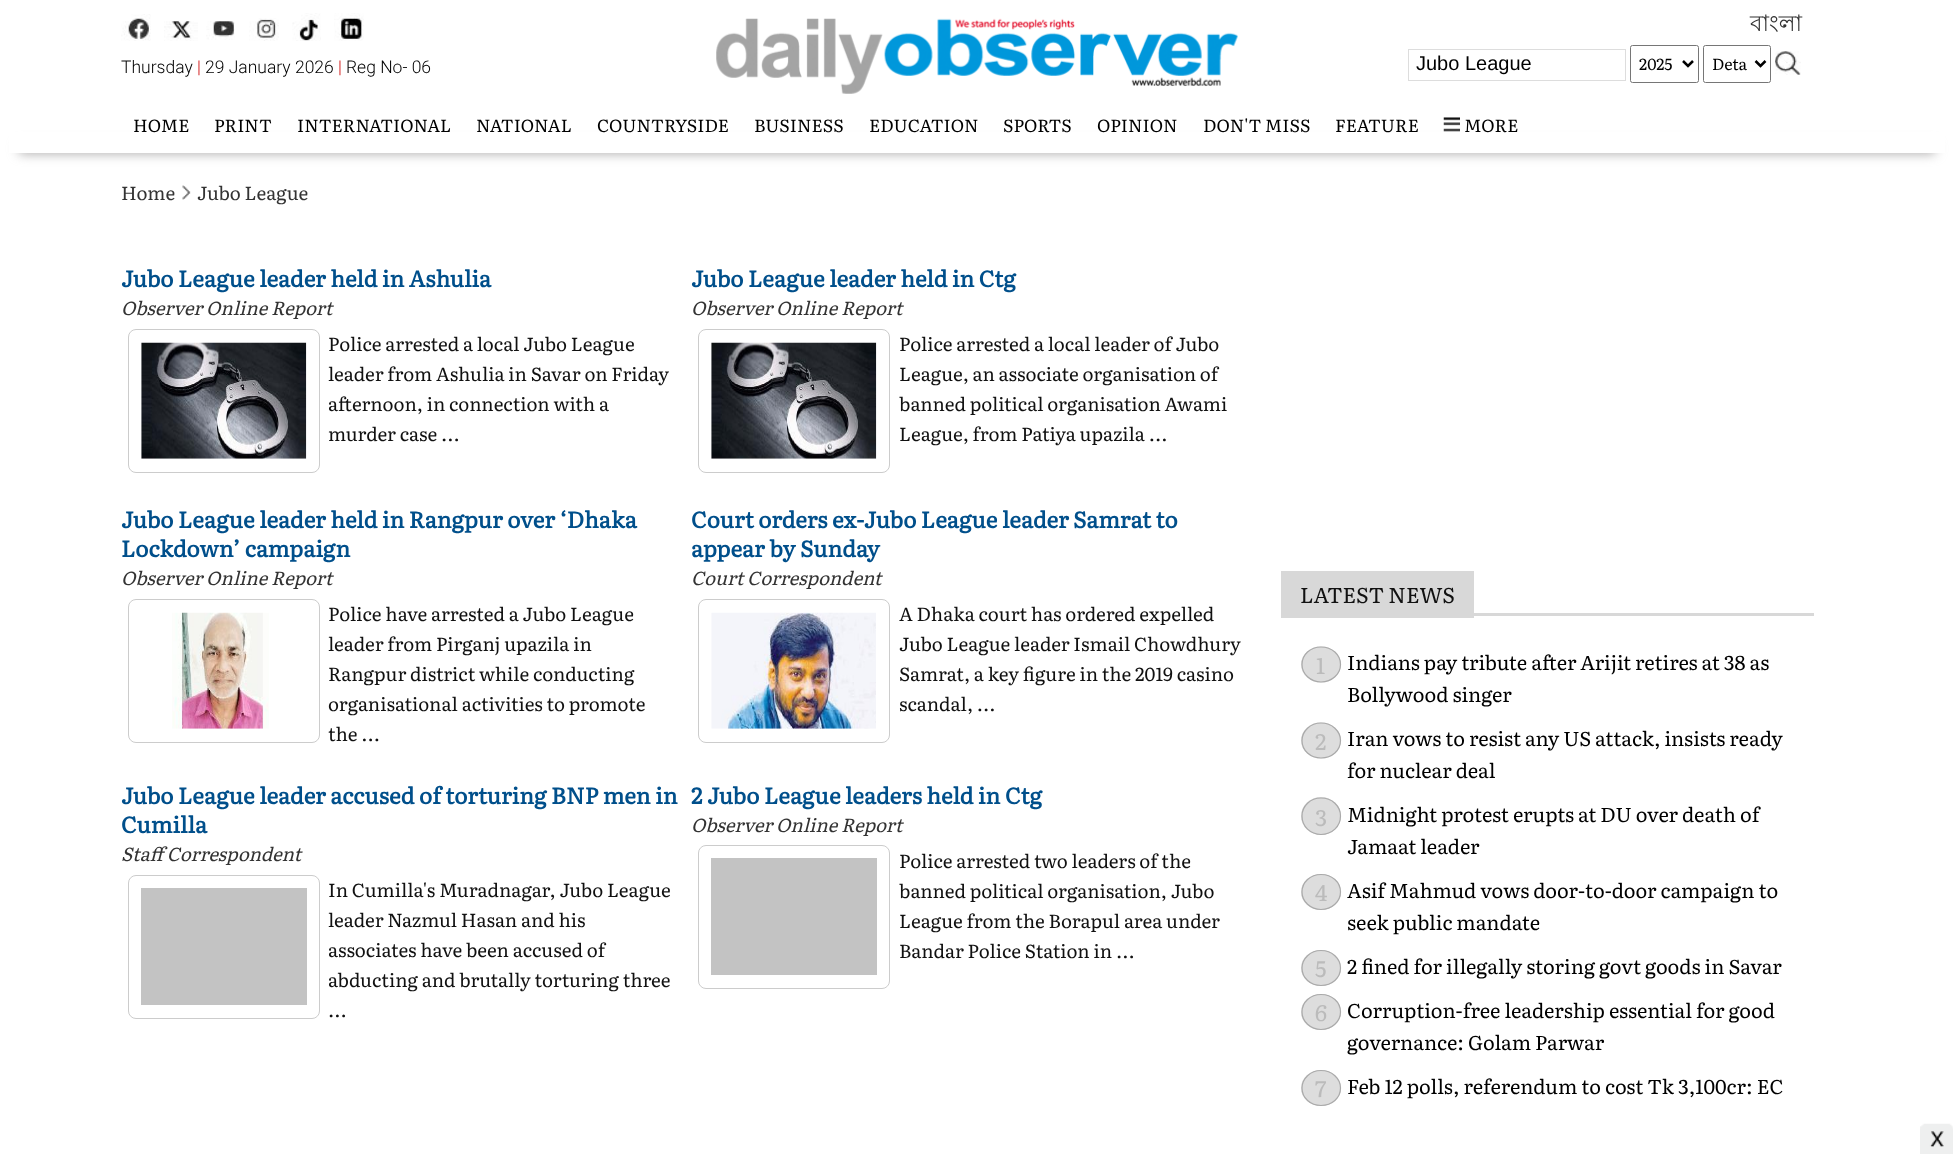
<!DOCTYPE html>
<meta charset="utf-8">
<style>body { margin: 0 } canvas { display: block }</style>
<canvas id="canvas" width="1953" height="1154"></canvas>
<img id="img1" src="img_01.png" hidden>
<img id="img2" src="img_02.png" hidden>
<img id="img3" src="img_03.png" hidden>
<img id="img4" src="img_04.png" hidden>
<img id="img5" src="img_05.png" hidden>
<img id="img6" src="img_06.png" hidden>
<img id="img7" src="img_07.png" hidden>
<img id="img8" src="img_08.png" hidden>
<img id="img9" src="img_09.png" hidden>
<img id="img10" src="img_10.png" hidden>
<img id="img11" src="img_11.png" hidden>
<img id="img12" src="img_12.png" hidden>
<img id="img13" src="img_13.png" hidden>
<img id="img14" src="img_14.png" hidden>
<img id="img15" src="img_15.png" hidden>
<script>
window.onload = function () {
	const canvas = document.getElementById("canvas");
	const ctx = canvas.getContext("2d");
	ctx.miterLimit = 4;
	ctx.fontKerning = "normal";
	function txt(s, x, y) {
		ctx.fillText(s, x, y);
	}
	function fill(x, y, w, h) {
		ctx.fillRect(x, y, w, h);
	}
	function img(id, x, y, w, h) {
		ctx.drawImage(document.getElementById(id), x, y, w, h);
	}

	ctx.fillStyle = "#FFFFFF";
	fill(0, 0, 1953, 1154);
	img("img1", 121, 14, 30, 27);
	img("img2", 164, 21, 34, 20);
	img("img3", 206, 21, 29, 19);
	img("img4", 249, 18, 30, 23);
	img("img5", 292, 13, 29, 28);
	img("img6", 334, 13, 30, 28);
	img("img7", 716, 18, 522, 76);
	ctx.strokeStyle = "#DDDDDD";
	ctx.strokeRect(1408.5, 49.5, 217, 31);
	ctx.beginPath();
	ctx.roundRect(1630.5, 45.5, 68, 37, 2);
	ctx.strokeStyle = "#767676";
	ctx.stroke();
	ctx.beginPath();
	ctx.moveTo(1683, 61);
	ctx.lineTo(1688, 66);
	ctx.lineTo(1693, 61);
	ctx.strokeStyle = "#000000";
	ctx.lineWidth = 2.5;
	ctx.stroke();
	ctx.beginPath();
	ctx.roundRect(1703.5, 45.5, 67, 37, 2);
	ctx.strokeStyle = "#767676";
	ctx.lineWidth = 1;
	ctx.stroke();
	ctx.beginPath();
	ctx.moveTo(1755.5, 61);
	ctx.lineTo(1760.5, 66);
	ctx.lineTo(1765.5, 61);
	ctx.strokeStyle = "#000000";
	ctx.lineWidth = 2.5;
	ctx.stroke();
	img("img8", 1775, 51, 26, 24);
	ctx.fillStyle = "#9D9B9B";
	ctx.filter = "blur(6px)";
	ctx.beginPath();
	ctx.rect(19, 144, 1916, 9);
	ctx.fill();
	ctx.filter = "none";
	ctx.fillStyle = "#FFFFFF";
	fill(9, 132, 1936, 21);
	img("img9", 1443, 117, 17, 15);
	img("img10", 182, 185, 9, 15);
	ctx.beginPath();
	ctx.roundRect(128.5, 329.5, 191, 143, 7.5);
	ctx.strokeStyle = "#CCCCCC";
	ctx.lineWidth = 1;
	ctx.stroke();
	img("img11", 141, 342, 166, 117);
	ctx.beginPath();
	ctx.roundRect(698.5, 329.5, 191, 143, 7.5);
	ctx.stroke();
	img("img12", 711, 342, 166, 117);
	ctx.beginPath();
	ctx.roundRect(128.5, 599.5, 191, 143, 7.5);
	ctx.stroke();
	img("img13", 172, 612, 97, 117);
	ctx.beginPath();
	ctx.roundRect(698.5, 599.5, 191, 143, 7.5);
	ctx.stroke();
	img("img14", 711, 612, 165, 117);
	ctx.beginPath();
	ctx.roundRect(128.5, 875.5, 191, 143, 7.5);
	ctx.stroke();
	ctx.fillStyle = "#C3C3C3";
	fill(141, 888, 166, 117);
	ctx.beginPath();
	ctx.roundRect(698.5, 845.5, 191, 143, 7.5);
	ctx.stroke();
	fill(711, 858, 166, 117);
	ctx.fillStyle = "#D8D8D8";
	fill(1474, 613, 340, 3);
	fill(1281, 571, 193, 47);
	ctx.fillStyle = "#DDDDDD";
	ctx.beginPath();
	ctx.ellipse(1321, 664.5, 20, 18, 0, 0, Math.PI * 2);
	ctx.fill();
	ctx.beginPath();
	ctx.moveTo(1321, 647);
	ctx.bezierCurveTo(1332, 647, 1340.5, 654.5, 1340.5, 664.5);
	ctx.bezierCurveTo(1340.5, 674, 1332, 682, 1321, 682);
	ctx.bezierCurveTo(1310.5, 682, 1302, 674, 1302, 664.5);
	ctx.bezierCurveTo(1302, 654.5, 1310.5, 647, 1321, 647);
	ctx.closePath();
	ctx.strokeStyle = "#AAAAAA";
	ctx.lineWidth = 1.2;
	ctx.stroke();
	ctx.beginPath();
	ctx.ellipse(1321, 740.5, 20, 18, 0, 0, Math.PI * 2);
	ctx.fill();
	ctx.beginPath();
	ctx.moveTo(1321, 723);
	ctx.bezierCurveTo(1332, 723, 1340.5, 731, 1340.5, 740.5);
	ctx.bezierCurveTo(1340.5, 750.5, 1332, 758, 1321, 758);
	ctx.bezierCurveTo(1310.5, 758, 1302, 750.5, 1302, 740.5);
	ctx.bezierCurveTo(1302, 731, 1310.5, 723, 1321, 723);
	ctx.closePath();
	ctx.stroke();
	ctx.beginPath();
	ctx.ellipse(1321, 816, 20, 19, 0, 0, Math.PI * 2);
	ctx.fill();
	ctx.beginPath();
	ctx.moveTo(1321, 798);
	ctx.bezierCurveTo(1332, 798, 1340.5, 806, 1340.5, 816);
	ctx.bezierCurveTo(1340.5, 826.5, 1332, 834.5, 1321, 834.5);
	ctx.bezierCurveTo(1310.5, 834.5, 1302, 826.5, 1302, 816);
	ctx.bezierCurveTo(1302, 806, 1310.5, 798, 1321, 798);
	ctx.closePath();
	ctx.stroke();
	ctx.beginPath();
	ctx.ellipse(1321, 892, 20, 18, 0, 0, Math.PI * 2);
	ctx.fill();
	ctx.beginPath();
	ctx.moveTo(1321, 874.5);
	ctx.bezierCurveTo(1332, 874.5, 1340.5, 882, 1340.5, 892);
	ctx.bezierCurveTo(1340.5, 901.5, 1332, 909.5, 1321, 909.5);
	ctx.bezierCurveTo(1310.5, 909.5, 1302, 901.5, 1302, 892);
	ctx.bezierCurveTo(1302, 882, 1310.5, 874.5, 1321, 874.5);
	ctx.closePath();
	ctx.stroke();
	ctx.beginPath();
	ctx.ellipse(1321, 968, 20, 18, 0, 0, Math.PI * 2);
	ctx.fill();
	ctx.beginPath();
	ctx.moveTo(1321, 950.5);
	ctx.bezierCurveTo(1332, 950.5, 1340.5, 958.5, 1340.5, 968);
	ctx.bezierCurveTo(1340.5, 978, 1332, 985.5, 1321, 985.5);
	ctx.bezierCurveTo(1310.5, 985.5, 1302, 978, 1302, 968);
	ctx.bezierCurveTo(1302, 958.5, 1310.5, 950.5, 1321, 950.5);
	ctx.closePath();
	ctx.stroke();
	ctx.beginPath();
	ctx.ellipse(1321, 1012, 20, 18, 0, 0, Math.PI * 2);
	ctx.fill();
	ctx.beginPath();
	ctx.moveTo(1321, 994.5);
	ctx.bezierCurveTo(1332, 994.5, 1340.5, 1002, 1340.5, 1012);
	ctx.bezierCurveTo(1340.5, 1021.5, 1332, 1029.5, 1321, 1029.5);
	ctx.bezierCurveTo(1310.5, 1029.5, 1302, 1021.5, 1302, 1012);
	ctx.bezierCurveTo(1302, 1002, 1310.5, 994.5, 1321, 994.5);
	ctx.closePath();
	ctx.stroke();
	ctx.beginPath();
	ctx.ellipse(1321, 1088, 20, 18, 0, 0, Math.PI * 2);
	ctx.fill();
	ctx.beginPath();
	ctx.moveTo(1321, 1070.5);
	ctx.bezierCurveTo(1332, 1070.5, 1340.5, 1078.5, 1340.5, 1088);
	ctx.bezierCurveTo(1340.5, 1098, 1332, 1105.5, 1321, 1105.5);
	ctx.bezierCurveTo(1310.5, 1105.5, 1302, 1098, 1302, 1088);
	ctx.bezierCurveTo(1302, 1078.5, 1310.5, 1070.5, 1321, 1070.5);
	ctx.closePath();
	ctx.stroke();
	img("img15", 1920, 1123, 33, 31);
	ctx.font = "300 17.5px Roboto";
	ctx.fillStyle = "#000000";
	txt("Thursday", 121, 73);
	ctx.fillStyle = "#CC0000";
	txt("|", 197, 73);
	ctx.fillStyle = "#000000";
	txt("29 January 2026", 205, 73);
	ctx.fillStyle = "#CC0000";
	txt("|", 338, 73);
	ctx.fillStyle = "#000000";
	txt("Reg No- 06", 346, 73);
	ctx.font = "22.5px Lohit Bengali";
	ctx.fillStyle = "#333333";
	txt("বাংলা", 1750, 31);
	ctx.font = "20px Liberation Sans";
	ctx.fillStyle = "#000000";
	txt("Jubo League", 1416, 70);
	ctx.font = "16px Literata";
	txt("2025", 1639, 70);
	txt("Deta", 1712, 70);
	ctx.font = "17.5px Literata";
	txt("HOME", 133, 132);
	txt("PRINT", 214, 132);
	txt("INTERNATIONAL", 297, 132);
	txt("NATIONAL", 476, 132);
	txt("COUNTRYSIDE", 597, 132);
	txt("BUSINESS", 754, 132);
	txt("EDUCATION", 869, 132);
	txt("SPORTS", 1003, 132);
	txt("OPINION", 1097, 132);
	txt("DON'T MISS", 1203, 132);
	txt("FEATURE", 1335, 132);
	txt("MORE", 1464, 132);
	ctx.font = "18.75px Literata";
	ctx.fillStyle = "#333333";
	txt("Home", 121, 200);
	txt("Jubo League", 197, 200);
	ctx.font = "bold 22.5px Literata";
	ctx.fillStyle = "#004F8B";
	txt("Jubo League leader held in Ashulia", 121, 287);
	ctx.font = "italic 18.75px Literata";
	ctx.fillStyle = "#333333";
	txt("Observer Online Report", 121, 315);
	ctx.font = "18.75px Literata";
	ctx.fillStyle = "#111111";
	txt("Police arrested a local Jubo League", 328, 351);
	txt("leader from Ashulia in Savar on Friday", 328, 381);
	txt("afternoon, in connection with a", 328, 411);
	txt("murder case ...", 328, 441);
	ctx.font = "bold 22.5px Literata";
	ctx.fillStyle = "#004F8B";
	txt("Jubo League leader held in Ctg", 691, 287);
	ctx.font = "italic 18.75px Literata";
	ctx.fillStyle = "#333333";
	txt("Observer Online Report", 691, 315);
	ctx.font = "18.75px Literata";
	ctx.fillStyle = "#111111";
	txt("Police arrested a local leader of Jubo", 899, 351);
	txt("League, an associate organisation of", 899, 381);
	txt("banned political organisation Awami", 899, 411);
	txt("League, from Patiya upazila ...", 899, 441);
	ctx.font = "bold 22.5px Literata";
	ctx.fillStyle = "#004F8B";
	txt("Jubo League leader held in Rangpur over ‘Dhaka", 121, 528);
	txt("Lockdown’ campaign", 121, 557);
	ctx.font = "italic 18.75px Literata";
	ctx.fillStyle = "#333333";
	txt("Observer Online Report", 121, 585);
	ctx.font = "18.75px Literata";
	ctx.fillStyle = "#111111";
	txt("Police have arrested a Jubo League", 328, 621);
	txt("leader from Pirganj upazila in", 328, 651);
	txt("Rangpur district while conducting", 328, 681);
	txt("organisational activities to promote", 328, 711);
	txt("the ...", 328, 741);
	ctx.font = "bold 22.5px Literata";
	ctx.fillStyle = "#004F8B";
	txt("Court orders ex-Jubo League leader Samrat to", 691, 528);
	txt("appear by Sunday", 691, 557);
	ctx.font = "italic 18.75px Literata";
	ctx.fillStyle = "#333333";
	txt("Court Correspondent", 691, 585);
	ctx.font = "18.75px Literata";
	ctx.fillStyle = "#111111";
	txt("A Dhaka court has ordered expelled", 899, 621);
	txt("Jubo League leader Ismail Chowdhury", 899, 651);
	txt("Samrat, a key figure in the 2019 casino", 899, 681);
	txt("scandal, ...", 899, 711);
	ctx.font = "bold 22.5px Literata";
	ctx.fillStyle = "#004F8B";
	txt("Jubo League leader accused of torturing BNP men in", 121, 804);
	txt("Cumilla", 121, 833);
	ctx.font = "italic 18.75px Literata";
	ctx.fillStyle = "#333333";
	txt("Staff Correspondent", 121, 861);
	ctx.font = "18.75px Literata";
	ctx.fillStyle = "#111111";
	txt("In Cumilla's Muradnagar, Jubo League", 328, 897);
	txt("leader Nazmul Hasan and his", 328, 927);
	txt("associates have been accused of", 328, 957);
	txt("abducting and brutally torturing three", 328, 987);
	txt("...", 328, 1017);
	ctx.font = "bold 22.5px Literata";
	ctx.fillStyle = "#004F8B";
	txt("2 Jubo League leaders held in Ctg", 691, 804);
	ctx.font = "italic 18.75px Literata";
	ctx.fillStyle = "#333333";
	txt("Observer Online Report", 691, 832);
	ctx.font = "18.75px Literata";
	ctx.fillStyle = "#111111";
	txt("Police arrested two leaders of the", 899, 868);
	txt("banned political organisation, Jubo", 899, 898);
	txt("League from the Borapul area under", 899, 928);
	txt("Bandar Police Station in ...", 899, 958);
	ctx.font = "21.25px Literata";
	txt("LATEST NEWS", 1300, 603);
	ctx.font = "22.5px Literata";
	ctx.fillStyle = "#BBBBBB";
	txt("1", 1316, 674);
	ctx.font = "20px Literata";
	ctx.fillStyle = "#000000";
	txt("Indians pay tribute after Arijit retires at 38 as", 1347, 670);
	txt("Bollywood singer", 1347, 702);
	ctx.font = "22.5px Literata";
	ctx.fillStyle = "#BBBBBB";
	txt("2", 1315, 750);
	ctx.font = "20px Literata";
	ctx.fillStyle = "#000000";
	txt("Iran vows to resist any US attack, insists ready", 1347, 746);
	txt("for nuclear deal", 1347, 778);
	ctx.font = "22.5px Literata";
	ctx.fillStyle = "#BBBBBB";
	txt("3", 1315, 826);
	ctx.font = "20px Literata";
	ctx.fillStyle = "#000000";
	txt("Midnight protest erupts at DU over death of", 1347, 822);
	txt("Jamaat leader", 1347, 854);
	ctx.font = "22.5px Literata";
	ctx.fillStyle = "#BBBBBB";
	txt("4", 1315, 901);
	ctx.font = "20px Literata";
	ctx.fillStyle = "#000000";
	txt("Asif Mahmud vows door-to-door campaign to", 1347, 898);
	txt("seek public mandate", 1347, 930);
	ctx.font = "22.5px Literata";
	ctx.fillStyle = "#BBBBBB";
	txt("5", 1315, 977);
	ctx.font = "20px Literata";
	ctx.fillStyle = "#000000";
	txt("2 fined for illegally storing govt goods in Savar", 1347, 974);
	ctx.font = "22.5px Literata";
	ctx.fillStyle = "#BBBBBB";
	txt("6", 1315, 1021);
	ctx.font = "20px Literata";
	ctx.fillStyle = "#000000";
	txt("Corruption-free leadership essential for good", 1347, 1018);
	txt("governance: Golam Parwar", 1347, 1050);
	ctx.font = "22.5px Literata";
	ctx.fillStyle = "#BBBBBB";
	txt("7", 1315, 1097);
	ctx.font = "20px Literata";
	ctx.fillStyle = "#000000";
	txt("Feb 12 polls, referendum to cost Tk 3,100cr: EC", 1347, 1094);
};
</script>
